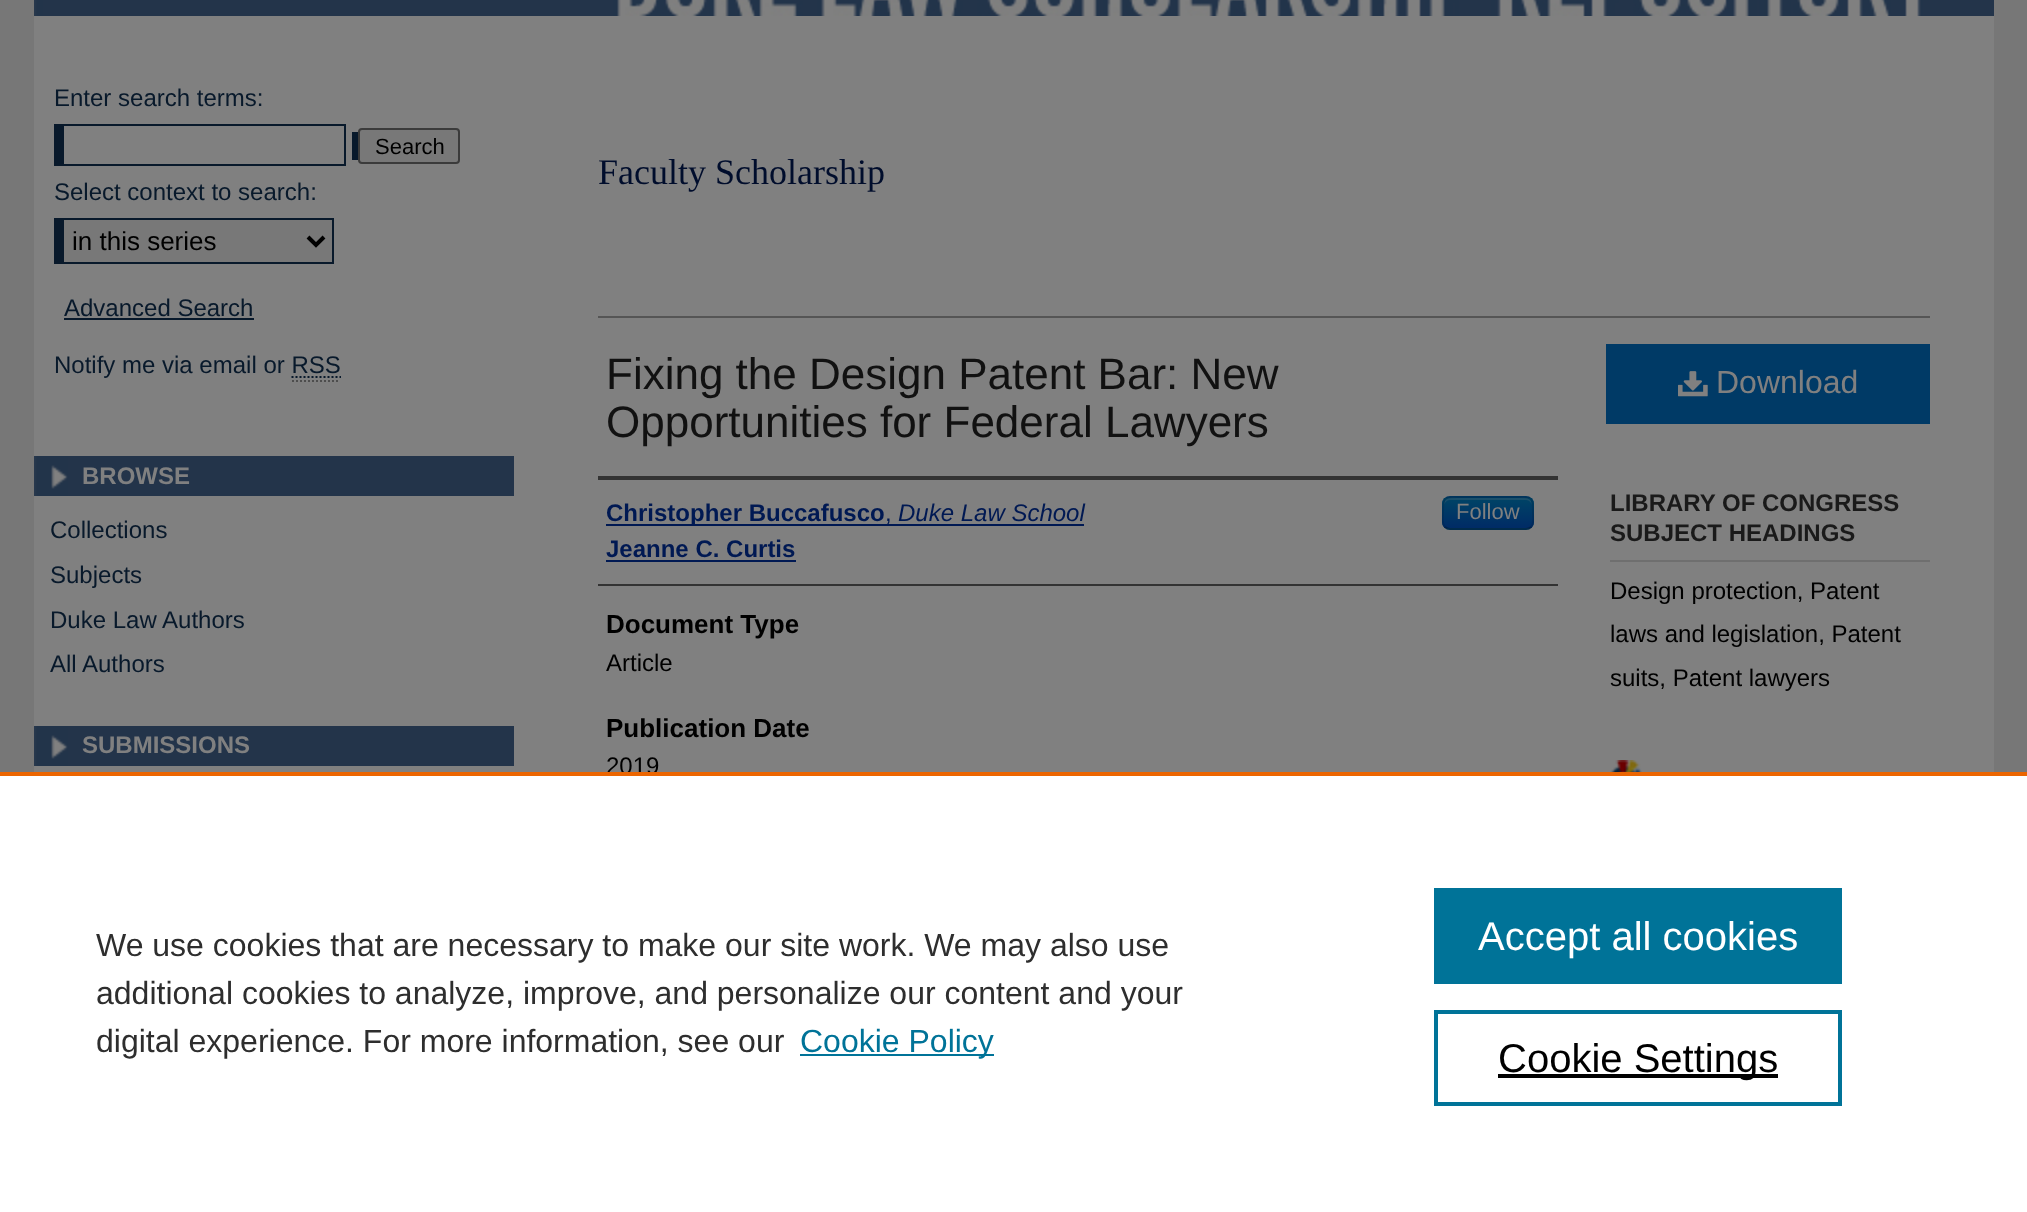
<!DOCTYPE html>
<meta charset="utf-8">
<style>body { margin: 0 } canvas { display: block }</style>
<canvas id="canvas" width="2027" height="1212"></canvas>
<img id="img1" src="img_01.png" hidden>
<img id="img2" src="img_02.png" hidden>
<img id="img3" src="img_03.png" hidden>
<img id="img4" src="img_04.png" hidden>
<script>
window.onload = function () {
	const canvas = document.getElementById("canvas");
	const ctx = canvas.getContext("2d");
	ctx.miterLimit = 4;
	ctx.fontKerning = "normal";
	function txt(s, x, y) {
		ctx.fillText(s, x, y);
	}
	function fill(x, y, w, h) {
		ctx.fillRect(x, y, w, h);
	}
	function round(x, y, w, h, r) {
		ctx.beginPath();
		ctx.roundRect(x, y, w, h, r);
		ctx.fill();
	}
	function img(id, x, y, w, h) {
		ctx.drawImage(document.getElementById(id), x, y, w, h);
	}
	let gradient;

	ctx.fillStyle = "#777777";
	fill(0, 0, 2027, 1212);
	img("img1", 34, 0, 1960, 16);
	ctx.fillStyle = "#808080";
	fill(34, 16, 1960, 756);
	ctx.fillStyle = "#08192B";
	fill(54, 124, 292, 42);
	fill(352, 132, 6, 28);
	ctx.fillStyle = "#808080";
	fill(64, 126, 280, 38);
	ctx.fillStyle = "#787878";
	ctx.beginPath();
	ctx.roundRect(359, 129, 100, 34, 3);
	ctx.fill();
	ctx.strokeStyle = "#3B3B3B";
	ctx.lineWidth = 2;
	ctx.stroke();
	fill(64, 220, 268, 42);
	ctx.fillStyle = "#08192B";
	fill(64, 218, 270, 2);
	fill(332, 218, 2, 46);
	fill(64, 262, 270, 2);
	fill(54, 218, 10, 46);
	ctx.beginPath();
	ctx.moveTo(308, 237);
	ctx.lineTo(316, 245);
	ctx.lineTo(324, 237);
	ctx.strokeStyle = "#000000";
	ctx.lineWidth = 4;
	ctx.stroke();
	fill(64, 318, 190, 2);
	ctx.beginPath();
	ctx.moveTo(291.5, 377);
	ctx.lineTo(341, 377);
	ctx.strokeStyle = "#08192B";
	ctx.lineWidth = 2;
	ctx.setLineDash([2, 2]);
	ctx.stroke();
	ctx.beginPath();
	ctx.moveTo(292, 381);
	ctx.lineTo(340, 381);
	ctx.strokeStyle = "#4D4D4D";
	ctx.stroke();
	ctx.fillStyle = "#23344A";
	fill(68, 456, 446, 40);
	img("img2", 34, 456, 34, 40);
	fill(68, 726, 446, 40);
	img("img2", 34, 726, 34, 40);
	ctx.fillStyle = "#555555";
	fill(598, 316, 1332, 2);
	ctx.fillStyle = "#333333";
	fill(598, 476, 960, 4);
	fill(598, 584, 960, 2);
	ctx.fillStyle = "#001953";
	fill(606, 524, 478, 2);
	ctx.fillStyle = "#003A66";
	round(1442, 496, 92, 34, 8);
	ctx.save();
	ctx.beginPath();
	ctx.roundRect(1442, 496, 92, 34, 8);
	ctx.clip();
	gradient = ctx.createLinearGradient(1488, 498, 1488, 528);
	gradient.addColorStop(0, "#004466");
	gradient.addColorStop(1, "#002B66");
	ctx.fillStyle = gradient;
	fill(1442, 498, 92, 30);
	ctx.restore();
	ctx.fillStyle = "rgba(128, 128, 128, 0.2)";
	ctx.beginPath();
	ctx.moveTo(1450, 500);
	ctx.lineTo(1526, 500);
	ctx.bezierCurveTo(1529, 500, 1532, 503, 1532, 506);
	ctx.bezierCurveTo(1532, 495, 1522, 498, 1513, 498);
	ctx.lineTo(1463, 498);
	ctx.bezierCurveTo(1454, 498, 1444, 495, 1444, 506);
	ctx.bezierCurveTo(1444, 503, 1447, 500, 1450, 500);
	ctx.closePath();
	ctx.fill();
	ctx.beginPath();
	ctx.moveTo(1531, 527);
	ctx.bezierCurveTo(1529.5, 528.5, 1528, 529, 1526, 529);
	ctx.lineTo(1450, 529);
	ctx.bezierCurveTo(1448, 529, 1446.5, 528.5, 1445, 527);
	ctx.strokeStyle = "rgba(0, 0, 0, 0.25)";
	ctx.setLineDash([]);
	ctx.stroke();
	ctx.beginPath();
	ctx.moveTo(1445, 527);
	ctx.bezierCurveTo(1441.5, 523.5, 1443, 517.5, 1443, 513);
	ctx.bezierCurveTo(1443, 495, 1444, 497, 1462.5, 497);
	ctx.lineTo(1513.5, 497);
	ctx.bezierCurveTo(1532, 497, 1533, 495, 1533, 513);
	ctx.bezierCurveTo(1533, 517.5, 1534.5, 523.5, 1531, 527);
	ctx.strokeStyle = "rgba(0, 0, 0, 0.1)";
	ctx.stroke();
	ctx.fillStyle = "#001953";
	fill(606, 560, 190, 2);
	ctx.fillStyle = "#003A66";
	fill(1606, 344, 324, 80);
	img("img3", 1678, 371, 30, 26);
	ctx.fillStyle = "#6F6F6F";
	fill(1610, 560, 320, 2);
	img("img4", 1610, 760, 32, 12);
	ctx.fillStyle = "#FFFFFF";
	fill(0, 776, 2027, 436);
	ctx.fillStyle = "#007398";
	fill(800, 1054, 194, 2);
	fill(1434, 888, 408, 96);
	ctx.strokeStyle = "#007398";
	ctx.lineWidth = 4;
	ctx.strokeRect(1436, 1012, 404, 92);
	ctx.fillStyle = "#000000";
	fill(1498, 1074, 280, 4);
	ctx.font = "24px Liberation Sans";
	ctx.fillStyle = "#08192B";
	txt("Enter search terms:", 54, 106);
	ctx.font = "22px Liberation Sans";
	ctx.fillStyle = "#000000";
	txt("Search", 375, 154);
	ctx.font = "24px Liberation Sans";
	ctx.fillStyle = "#08192B";
	txt("Select context to search:", 54, 200);
	ctx.font = "26px Liberation Sans";
	ctx.fillStyle = "#000000";
	txt("in this series", 72, 250);
	ctx.font = "24px Liberation Sans";
	ctx.fillStyle = "#08192B";
	txt("Advanced Search", 64, 316);
	txt("Notify me via email or RSS", 54, 373);
	ctx.font = "bold 24px Liberation Sans";
	ctx.fillStyle = "#808080";
	txt("BROWSE", 82, 484);
	ctx.font = "24px Liberation Sans";
	ctx.fillStyle = "#08192B";
	txt("Collections", 50, 538);
	txt("Subjects", 50, 583);
	txt("Duke Law Authors", 50, 628);
	txt("All Authors", 50, 672);
	ctx.font = "bold 24px Liberation Sans";
	ctx.fillStyle = "#808080";
	txt("SUBMISSIONS", 82, 753);
	ctx.font = "36px Liberation Serif";
	ctx.fillStyle = "#000D2C";
	txt("Faculty Scholarship", 598, 184);
	ctx.font = "44px Liberation Sans";
	ctx.fillStyle = "#111111";
	txt("Fixing the Design Patent Bar: New", 606, 389);
	txt("Opportunities for Federal Lawyers", 606, 437);
	ctx.font = "bold 24px Liberation Sans";
	ctx.fillStyle = "#001953";
	txt("Christopher Buccafusco", 606, 521);
	ctx.font = "24px Liberation Sans";
	txt(",", 885, 521);
	ctx.font = "italic 24px Liberation Sans";
	txt("Duke Law School", 898, 521);
	ctx.font = "22px Liberation Sans";
	ctx.fillStyle = "#808080";
	txt("Follow", 1456, 519);
	ctx.font = "bold 24px Liberation Sans";
	ctx.fillStyle = "#001953";
	txt("Jeanne C. Curtis", 606, 557);
	ctx.font = "bold 26px Liberation Sans";
	ctx.fillStyle = "#000000";
	txt("Document Type", 606, 633);
	ctx.font = "24px Liberation Sans";
	txt("Article", 606, 671);
	ctx.font = "bold 26px Liberation Sans";
	txt("Publication Date", 606, 737);
	ctx.font = "24px Liberation Sans";
	txt("2019", 606, 774);
	ctx.font = "32px Liberation Sans";
	ctx.fillStyle = "#808080";
	txt("Download", 1716, 393);
	ctx.font = "bold 24px Liberation Sans";
	ctx.fillStyle = "#1A1A1A";
	txt("LIBRARY OF CONGRESS", 1610, 511);
	txt("SUBJECT HEADINGS", 1610, 541);
	ctx.font = "24px Liberation Sans";
	ctx.fillStyle = "#000000";
	txt("Design protection, Patent", 1610, 599);
	txt("laws and legislation, Patent", 1610, 642);
	txt("suits, Patent lawyers", 1610, 686);
	ctx.fillStyle = "#EB6500";
	fill(0, 772, 2027, 4);
	ctx.font = "32px Liberation Sans";
	ctx.fillStyle = "#2E2E2E";
	txt("We use cookies that are necessary to make our site work. We may also use", 96, 956);
	txt("additional cookies to analyze, improve, and personalize our content and your", 96, 1004);
	txt("digital experience. For more information, see our", 96, 1052);
	ctx.fillStyle = "#007398";
	txt("Cookie Policy", 800, 1052);
	ctx.font = "40px Liberation Sans";
	ctx.fillStyle = "#FFFFFF";
	txt("Accept all cookies", 1478, 950);
	ctx.fillStyle = "#000000";
	txt("Cookie Settings", 1498, 1072);
};
</script>
